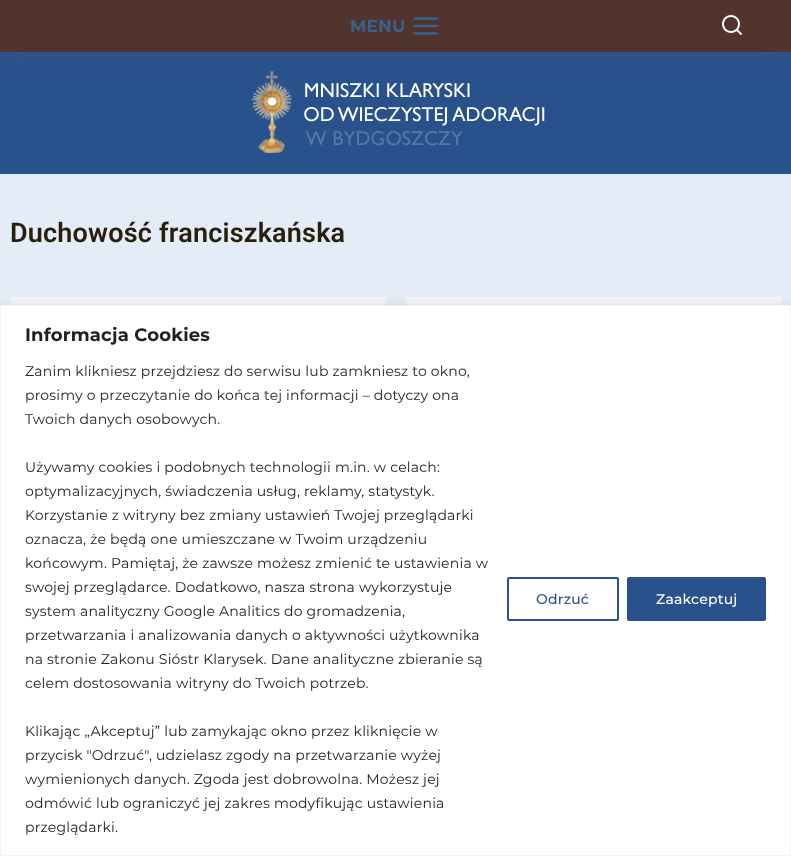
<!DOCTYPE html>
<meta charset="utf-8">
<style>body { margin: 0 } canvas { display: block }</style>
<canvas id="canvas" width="791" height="856"></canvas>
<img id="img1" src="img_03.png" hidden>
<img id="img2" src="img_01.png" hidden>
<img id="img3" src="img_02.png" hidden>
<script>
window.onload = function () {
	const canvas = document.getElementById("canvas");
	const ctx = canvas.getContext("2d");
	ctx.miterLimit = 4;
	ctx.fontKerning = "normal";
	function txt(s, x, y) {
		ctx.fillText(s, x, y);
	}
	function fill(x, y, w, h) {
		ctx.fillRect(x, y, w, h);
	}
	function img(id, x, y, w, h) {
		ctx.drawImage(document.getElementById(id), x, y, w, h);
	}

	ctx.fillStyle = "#E3ECF7";
	fill(0, 0, 791, 856);
	ctx.fillStyle = "#29518C";
	fill(0, 52, 791, 122);
	img("img1", 251, 71, 294, 82);
	ctx.fillStyle = "#666666";
	ctx.filter = "blur(15px)";
	ctx.beginPath();
	ctx.rect(-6, -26, 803, 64);
	ctx.fill();
	ctx.filter = "none";
	ctx.fillStyle = "#52342E";
	fill(0, 0, 791, 52);
	img("img2", 413, 17, 26, 18);
	img("img3", 722, 15, 20, 20);
	ctx.fillStyle = "#F6F6F6";
	fill(10, 297, 376, 8);
	fill(406, 297, 375, 8);
	ctx.fillStyle = "rgba(172, 171, 171, 0.3)";
	ctx.filter = "blur(5px)";
	ctx.beginPath();
	ctx.rect(0, 304, 791, 551);
	ctx.fill();
	ctx.filter = "none";
	ctx.fillStyle = "#FFFFFF";
	ctx.beginPath();
	ctx.rect(0.5, 305.5, 790, 550);
	ctx.fill();
	ctx.strokeStyle = "#F4F4F4";
	ctx.stroke();
	ctx.beginPath();
	ctx.roundRect(508, 578, 110, 42, 1);
	ctx.strokeStyle = "#29518C";
	ctx.lineWidth = 2;
	ctx.stroke();
	ctx.fillStyle = "#29518C";
	ctx.beginPath();
	ctx.roundRect(628, 578, 137, 42, 1);
	ctx.fill();
	ctx.stroke();
	ctx.letterSpacing = "0.2px";
	ctx.font = "bold 17px Montserrat";
	ctx.fillStyle = "#37628C";
	txt("MENU", 350, 32);
	ctx.font = "600 27px Roboto";
	ctx.fillStyle = "#2A1F0B";
	txt("Duchowość franciszkańska", 10, 242);
	ctx.font = "bold 18px Montserrat";
	ctx.fillStyle = "#212121";
	txt("Informacja Cookies", 25, 341);
	ctx.font = "14px Montserrat";
	txt("Zanim klikniesz przejdziesz do serwisu lub zamkniesz to okno,", 25, 376);
	txt("prosimy o przeczytanie do końca tej informacji – dotyczy ona", 25, 400);
	txt("Twoich danych osobowych.", 25, 424);
	txt("Używamy cookies i podobnych technologii m.in. w celach:", 25, 472);
	txt("optymalizacyjnych, świadczenia usług, reklamy, statystyk.", 25, 496);
	txt("Korzystanie z witryny bez zmiany ustawień Twojej przeglądarki", 25, 520);
	txt("oznacza, że będą one umieszczane w Twoim urządzeniu", 25, 544);
	txt("końcowym. Pamiętaj, że zawsze możesz zmienić te ustawienia w", 25, 568);
	txt("swojej przeglądarce. Dodatkowo, nasza strona wykorzystuje", 25, 592);
	txt("system analityczny Google Analitics do gromadzenia,", 25, 616);
	txt("przetwarzania i analizowania danych o aktywności użytkownika", 25, 640);
	txt("na stronie Zakonu Sióstr Klarysek. Dane analityczne zbieranie są", 25, 664);
	txt("celem dostosowania witryny do Twoich potrzeb.", 25, 688);
	txt("Klikając „Akceptuj” lub zamykając okno przez kliknięcie w", 25, 736);
	txt("przycisk \"Odrzuć\", udzielasz zgody na przetwarzanie wyżej", 25, 760);
	txt("wymienionych danych. Zgoda jest dobrowolna. Możesz jej", 25, 784);
	txt("odmówić lub ograniczyć jej zakres modyfikując ustawienia", 25, 808);
	txt("przeglądarki.", 25, 832);
	ctx.font = "500 14px Montserrat";
	ctx.fillStyle = "#29518C";
	txt("Odrzuć", 536, 604);
	ctx.fillStyle = "#FFFFFF";
	txt("Zaakceptuj", 656, 604);
};
</script>
